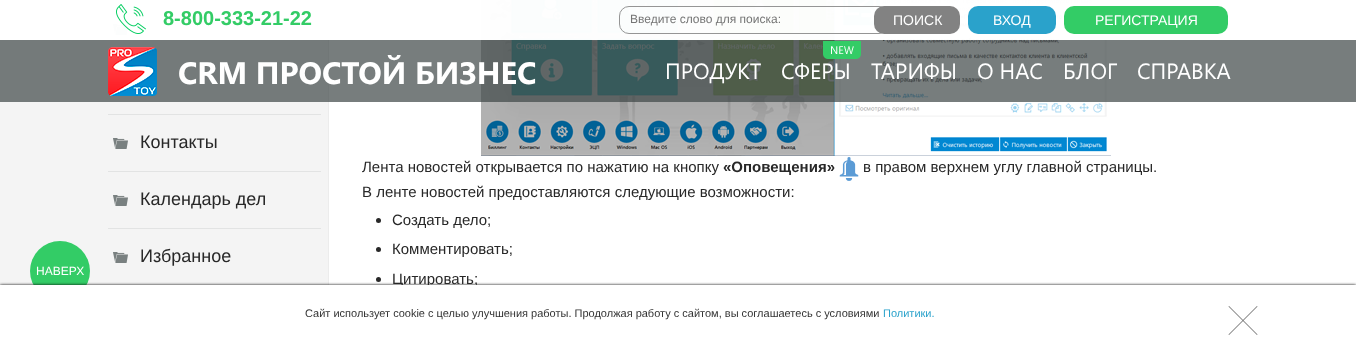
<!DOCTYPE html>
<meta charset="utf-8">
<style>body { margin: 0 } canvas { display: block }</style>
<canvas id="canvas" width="1356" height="351"></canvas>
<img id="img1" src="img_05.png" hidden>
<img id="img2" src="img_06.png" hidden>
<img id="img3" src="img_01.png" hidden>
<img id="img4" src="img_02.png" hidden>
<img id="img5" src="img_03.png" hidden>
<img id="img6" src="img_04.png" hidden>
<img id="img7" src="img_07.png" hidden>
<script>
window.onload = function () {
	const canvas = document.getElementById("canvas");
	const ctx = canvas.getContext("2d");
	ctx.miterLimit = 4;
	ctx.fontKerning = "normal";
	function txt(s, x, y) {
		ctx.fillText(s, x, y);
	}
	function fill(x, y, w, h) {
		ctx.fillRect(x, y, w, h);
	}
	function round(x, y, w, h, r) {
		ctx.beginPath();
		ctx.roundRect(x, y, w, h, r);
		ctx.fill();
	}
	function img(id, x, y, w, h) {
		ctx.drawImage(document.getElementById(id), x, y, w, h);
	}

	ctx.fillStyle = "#FFFFFF";
	fill(0, 0, 1356, 351);
	ctx.fillStyle = "#F4F4F4";
	fill(0, 0, 328, 285);
	img("img1", 113, 24, 15, 11);
	ctx.fillStyle = "#ECECEC";
	fill(328, 0, 1, 285);
	img("img2", 481, 0, 630, 156);
	img("img3", 0, 0, 1356, 102);
	img("img4", 116, 4, 30, 30);
	ctx.beginPath();
	ctx.roundRect(619.5, 6.5, 269, 27, 9.5);
	ctx.strokeStyle = "#959595";
	ctx.stroke();
	ctx.fillStyle = "#828282";
	round(874, 6, 86, 28, 10);
	ctx.fillStyle = "#2AA2CB";
	round(968, 6, 88, 28, 10);
	ctx.fillStyle = "#33CC66";
	round(1064, 6, 164, 28, 10);
	img("img5", 108, 47, 49, 49);
	img("img6", 823, 41, 38, 18);
	ctx.beginPath();
	ctx.arc(60, 271, 30, 0, Math.PI * 2);
	ctx.fill();
	ctx.fillStyle = "#E2E3E3";
	fill(108, 114, 213, 1);
	fill(108, 171, 213, 1);
	img("img1", 113, 138, 15, 11);
	fill(108, 228, 213, 1);
	img("img1", 113, 195, 15, 11);
	img("img1", 113, 252, 15, 11);
	img("img7", 839, 157, 20, 24);
	ctx.fillStyle = "#282828";
	ctx.beginPath();
	ctx.arc(378.5, 220.5, 2.5, 0, Math.PI * 2);
	ctx.fill();
	ctx.beginPath();
	ctx.arc(378.5, 249.5, 2.5, 0, Math.PI * 2);
	ctx.fill();
	ctx.beginPath();
	ctx.arc(378.5, 279.5, 2.5, 0, Math.PI * 2);
	ctx.fill();
	ctx.fillStyle = "#000000";
	ctx.filter = "blur(1.5px)";
	ctx.beginPath();
	ctx.rect(0, 285, 1356, 66);
	ctx.fill();
	ctx.filter = "none";
	ctx.font = "bold 20px Liberation Sans";
	ctx.fillStyle = "#33CC66";
	txt("8-800-333-21-22", 163, 25);
	ctx.font = "12px Liberation Sans";
	ctx.fillStyle = "#757575";
	txt("Введите слово для поиска:", 630, 23);
	ctx.font = "14px Liberation Sans";
	ctx.fillStyle = "#FFFFFF";
	txt("ПОИСК", 893, 25);
	txt("ВХОД", 993, 25);
	txt("РЕГИСТРАЦИЯ", 1095, 25);
	ctx.font = "bold 31px Segoe UI";
	txt("CRM ПРОСТОЙ БИЗНЕС", 178, 84);
	ctx.font = "22px Segoe UI";
	txt("ПРОДУКТ", 665, 79);
	txt("СФЕРЫ", 781, 79);
	txt("ТАРИФЫ", 871, 79);
	txt("О НАС", 977, 79);
	txt("БЛОГ", 1063, 79);
	txt("СПРАВКА", 1137, 79);
	ctx.font = "12px Liberation Sans";
	txt("НАВЕРХ", 36, 275);
	ctx.font = "18px Liberation Sans";
	ctx.fillStyle = "#282828";
	txt("Контакты", 140, 148);
	txt("Календарь дел", 140, 205);
	txt("Избранное", 140, 262);
	ctx.font = "15px Liberation Sans";
	txt("Лента новостей открывается по нажатию на кнопку", 362, 172);
	ctx.font = "bold 15px Liberation Sans";
	txt("«Оповещения»", 723, 172);
	ctx.font = "15px Liberation Sans";
	txt("в правом верхнем углу главной страницы.", 863, 172);
	txt("В ленте новостей предоставляются следующие возможности:", 362, 197);
	txt("Создать дело;", 392, 225);
	txt("Комментировать;", 392, 254);
	txt("Цитировать;", 392, 284);
	ctx.fillStyle = "#FFFFFF";
	fill(0, 285, 1356, 66);
	ctx.font = "11px Liberation Sans";
	ctx.fillStyle = "#333333";
	txt("Сайт использует cookie с целью улучшения работы. Продолжая работу с сайтом, вы соглашаетесь с условиями", 305, 317);
	ctx.fillStyle = "#2AA2CB";
	txt("Политики.", 883, 317);
	ctx.fillStyle = "#666666";
	ctx.beginPath();
	ctx.moveTo(1229, 306);
	ctx.lineTo(1257.5, 334.5);
	ctx.lineTo(1257, 335);
	ctx.lineTo(1228.5, 306.5);
	ctx.closePath();
	ctx.fill();
	ctx.beginPath();
	ctx.moveTo(1228.5, 334.5);
	ctx.lineTo(1257, 306);
	ctx.lineTo(1257.5, 306.5);
	ctx.lineTo(1229, 335);
	ctx.closePath();
	ctx.fill();
};
</script>
